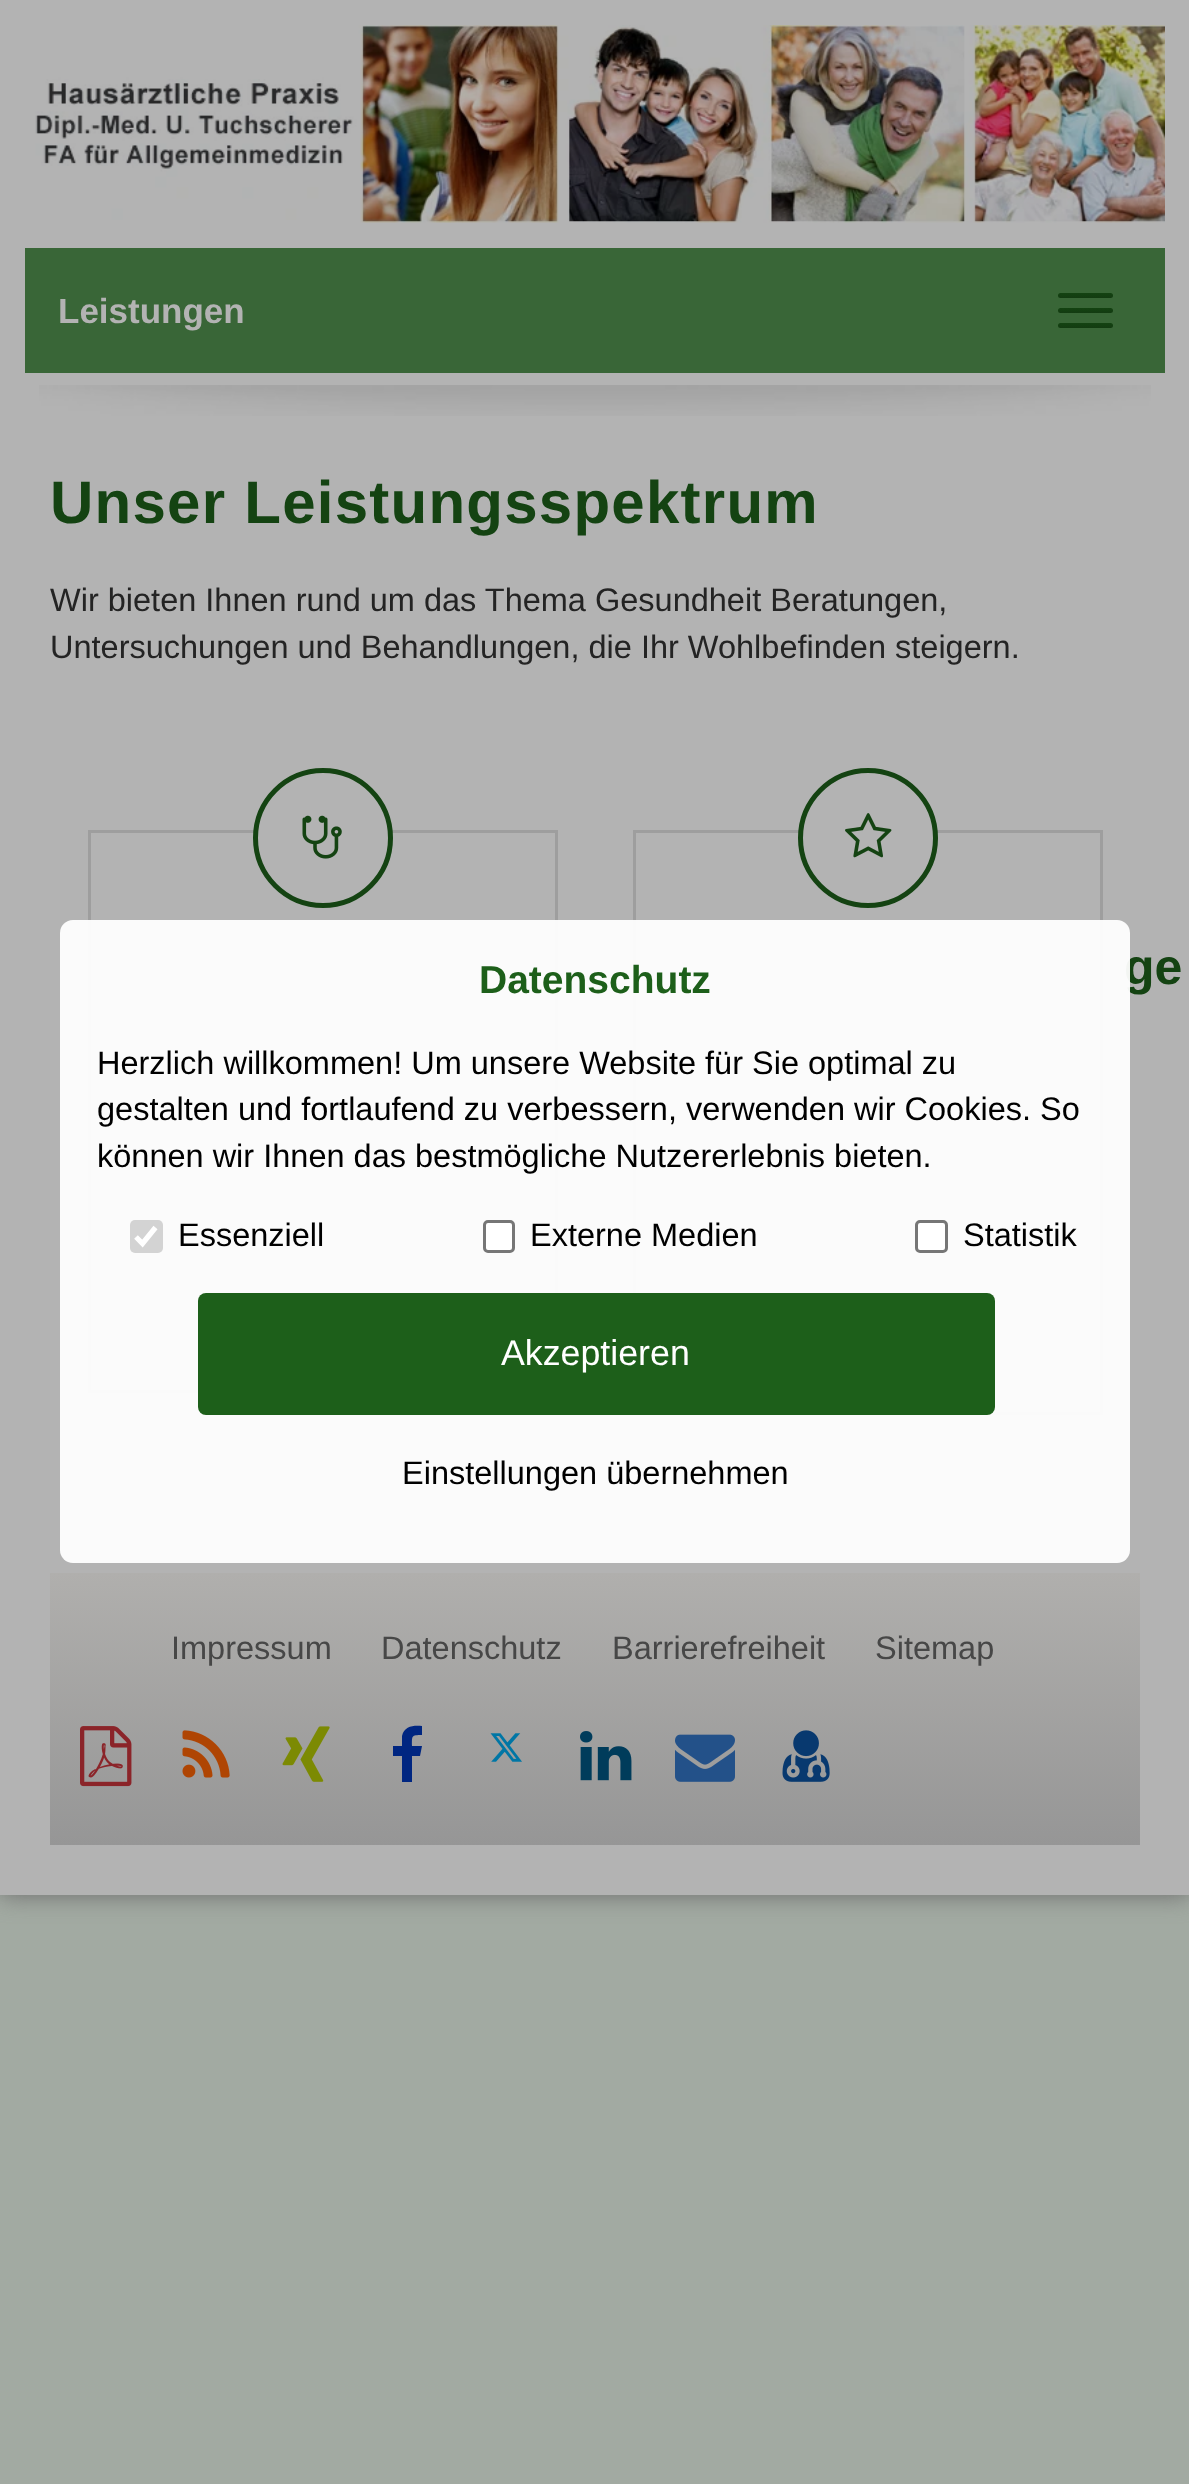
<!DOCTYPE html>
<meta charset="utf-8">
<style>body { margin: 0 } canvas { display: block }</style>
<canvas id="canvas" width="1189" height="2484"></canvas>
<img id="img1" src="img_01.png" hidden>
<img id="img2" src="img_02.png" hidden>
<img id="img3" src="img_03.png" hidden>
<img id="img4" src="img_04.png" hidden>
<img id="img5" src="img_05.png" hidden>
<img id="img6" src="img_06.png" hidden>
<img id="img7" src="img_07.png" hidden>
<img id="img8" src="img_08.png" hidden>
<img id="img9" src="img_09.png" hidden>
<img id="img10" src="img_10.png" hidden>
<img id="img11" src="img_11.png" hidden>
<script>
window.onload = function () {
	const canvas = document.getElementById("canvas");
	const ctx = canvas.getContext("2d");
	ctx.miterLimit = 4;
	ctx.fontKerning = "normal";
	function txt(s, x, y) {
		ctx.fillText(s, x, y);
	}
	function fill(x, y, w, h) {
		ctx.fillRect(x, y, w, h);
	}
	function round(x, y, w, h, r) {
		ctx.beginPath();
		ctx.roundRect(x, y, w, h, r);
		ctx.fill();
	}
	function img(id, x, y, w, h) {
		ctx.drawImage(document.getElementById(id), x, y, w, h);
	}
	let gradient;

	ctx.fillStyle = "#A2AAA2";
	fill(0, 0, 1189, 2484);
	ctx.fillStyle = "#6B6B6B";
	ctx.filter = "blur(12.5px)";
	ctx.beginPath();
	ctx.rect(0, 1573, 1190, 322);
	ctx.fill();
	ctx.filter = "none";
	ctx.fillStyle = "#B3B3B3";
	fill(0, 0, 1189, 1895);
	img("img1", 35, 25, 1130, 198);
	ctx.fillStyle = "#396637";
	fill(25, 248, 1140, 125);
	gradient = ctx.createLinearGradient(1085, 293, 1085, 298);
	gradient.addColorStop(0, "#144312");
	gradient.addColorStop(1, "#133B11");
	ctx.fillStyle = gradient;
	round(1058, 293, 55, 5, 2.5);
	gradient = ctx.createLinearGradient(1085, 308, 1085, 313);
	gradient.addColorStop(0, "#144312");
	gradient.addColorStop(1, "#133B11");
	ctx.fillStyle = gradient;
	round(1058, 308, 55, 5, 2.5);
	gradient = ctx.createLinearGradient(1085, 323, 1085, 328);
	gradient.addColorStop(0, "#144312");
	gradient.addColorStop(1, "#133B11");
	ctx.fillStyle = gradient;
	round(1058, 323, 55, 5, 2.5);
	img("img2", 39, 385, 1112, 31);
	ctx.strokeStyle = "#9E9E9E";
	ctx.lineWidth = 3;
	ctx.strokeRect(89.5, 831.5, 467, 560);
	ctx.fillStyle = "#B3B3B3";
	ctx.beginPath();
	ctx.arc(323, 838, 67.5, 0, Math.PI * 2);
	ctx.fill();
	ctx.strokeStyle = "#144312";
	ctx.lineWidth = 5;
	ctx.stroke();
	img("img3", 302, 815, 40, 44);
	ctx.strokeStyle = "#9E9E9E";
	ctx.lineWidth = 3;
	ctx.strokeRect(634.5, 831.5, 467, 582);
	ctx.beginPath();
	ctx.arc(868, 838, 67.5, 0, Math.PI * 2);
	ctx.fill();
	ctx.strokeStyle = "#144312";
	ctx.lineWidth = 5;
	ctx.stroke();
	img("img4", 845, 813, 47, 45);
	gradient = ctx.createLinearGradient(595, 1573, 595, 1845);
	gradient.addColorStop(0, "#B0AFAD");
	gradient.addColorStop(1, "#969696");
	ctx.fillStyle = gradient;
	fill(50, 1573, 1090, 272);
	img("img5", 80, 1726, 52, 61);
	img("img6", 182, 1730, 48, 48);
	img("img7", 282, 1726, 48, 56);
	ctx.fillStyle = "#002681";
	ctx.beginPath();
	ctx.moveTo(422, 1726);
	ctx.lineTo(422, 1735);
	ctx.bezierCurveTo(411, 1735, 412, 1736, 412, 1746);
	ctx.lineTo(422, 1746);
	ctx.lineTo(420, 1756);
	ctx.lineTo(412, 1756);
	ctx.lineTo(412, 1782);
	ctx.lineTo(402, 1782);
	ctx.lineTo(402, 1756);
	ctx.lineTo(393, 1756);
	ctx.lineTo(393, 1746);
	ctx.lineTo(402, 1746);
	ctx.lineTo(402, 1736);
	ctx.bezierCurveTo(404, 1726, 414, 1725, 422, 1726);
	ctx.closePath();
	ctx.fill();
	img("img8", 490, 1733, 32, 29);
	img("img9", 580, 1731, 52, 50);
	img("img10", 675, 1734, 60, 48);
	img("img11", 782, 1730, 48, 52);
	ctx.font = "bold 35px Liberation Sans";
	ctx.fillStyle = "#B3B3B3";
	txt("Leistungen", 58, 323);
	ctx.letterSpacing = "1.25px";
	ctx.font = "bold 60px Liberation Sans";
	ctx.fillStyle = "#144312";
	txt("Unser Leistungsspektrum", 50, 523);
	ctx.letterSpacing = "0px";
	ctx.font = "32.5px Liberation Sans";
	ctx.fillStyle = "#242424";
	txt("Wir bieten Ihnen rund um das Thema Gesundheit Beratungen,", 50, 611);
	txt("Untersuchungen und Behandlungen, die Ihr Wohlbefinden steigern.", 50, 658);
	ctx.font = "bold 50px Liberation Sans";
	ctx.fillStyle = "#144312";
	txt("ge", 1124, 984);
	ctx.font = "32.5px Liberation Sans";
	ctx.fillStyle = "#474747";
	txt("Impressum", 171, 1659);
	txt("Datenschutz", 381, 1659);
	txt("Barrierefreiheit", 612, 1659);
	txt("Sitemap", 875, 1659);
	ctx.fillStyle = "rgba(255, 255, 255, 0.95)";
	round(60, 920, 1070, 643, 13);
	ctx.font = "bold 39px Liberation Sans";
	ctx.fillStyle = "#1D5F1A";
	txt("Datenschutz", 479, 993);
	ctx.font = "32.5px Liberation Sans";
	ctx.fillStyle = "#000000";
	txt("Herzlich willkommen! Um unsere Website für Sie optimal zu", 97, 1074);
	txt("gestalten und fortlaufend zu verbessern, verwenden wir Cookies. So", 97, 1120);
	txt("können wir Ihnen das bestmögliche Nutzererlebnis bieten.", 97, 1167);
	ctx.fillStyle = "rgba(118, 118, 118, 0.3)";
	round(130, 1220, 33, 33, 5);
	ctx.beginPath();
	ctx.moveTo(136, 1237);
	ctx.lineTo(142.5, 1243.5);
	ctx.lineTo(155.5, 1227.5);
	ctx.strokeStyle = "#FFFFFF";
	ctx.lineWidth = 5.2;
	ctx.stroke();
	ctx.fillStyle = "#000000";
	txt("Essenziell", 178, 1246);
	ctx.fillStyle = "#FFFFFF";
	ctx.beginPath();
	ctx.roundRect(484.5, 1221.5, 29, 30, 3.5);
	ctx.fill();
	ctx.strokeStyle = "#767676";
	ctx.lineWidth = 3;
	ctx.stroke();
	ctx.fillStyle = "#000000";
	txt("Externe Medien", 530, 1246);
	ctx.fillStyle = "#FFFFFF";
	ctx.beginPath();
	ctx.roundRect(916.5, 1221.5, 30, 30, 3.5);
	ctx.fill();
	ctx.stroke();
	ctx.fillStyle = "#000000";
	txt("Statistik", 963, 1246);
	ctx.fillStyle = "#1D5F1A";
	round(198, 1293, 797, 122, 8);
	ctx.font = "35.75px Liberation Sans";
	ctx.fillStyle = "#FFFFFF";
	txt("Akzeptieren", 501, 1365);
	ctx.font = "32.5px Liberation Sans";
	ctx.fillStyle = "#000000";
	txt("Einstellungen übernehmen", 402, 1484);
};
</script>
